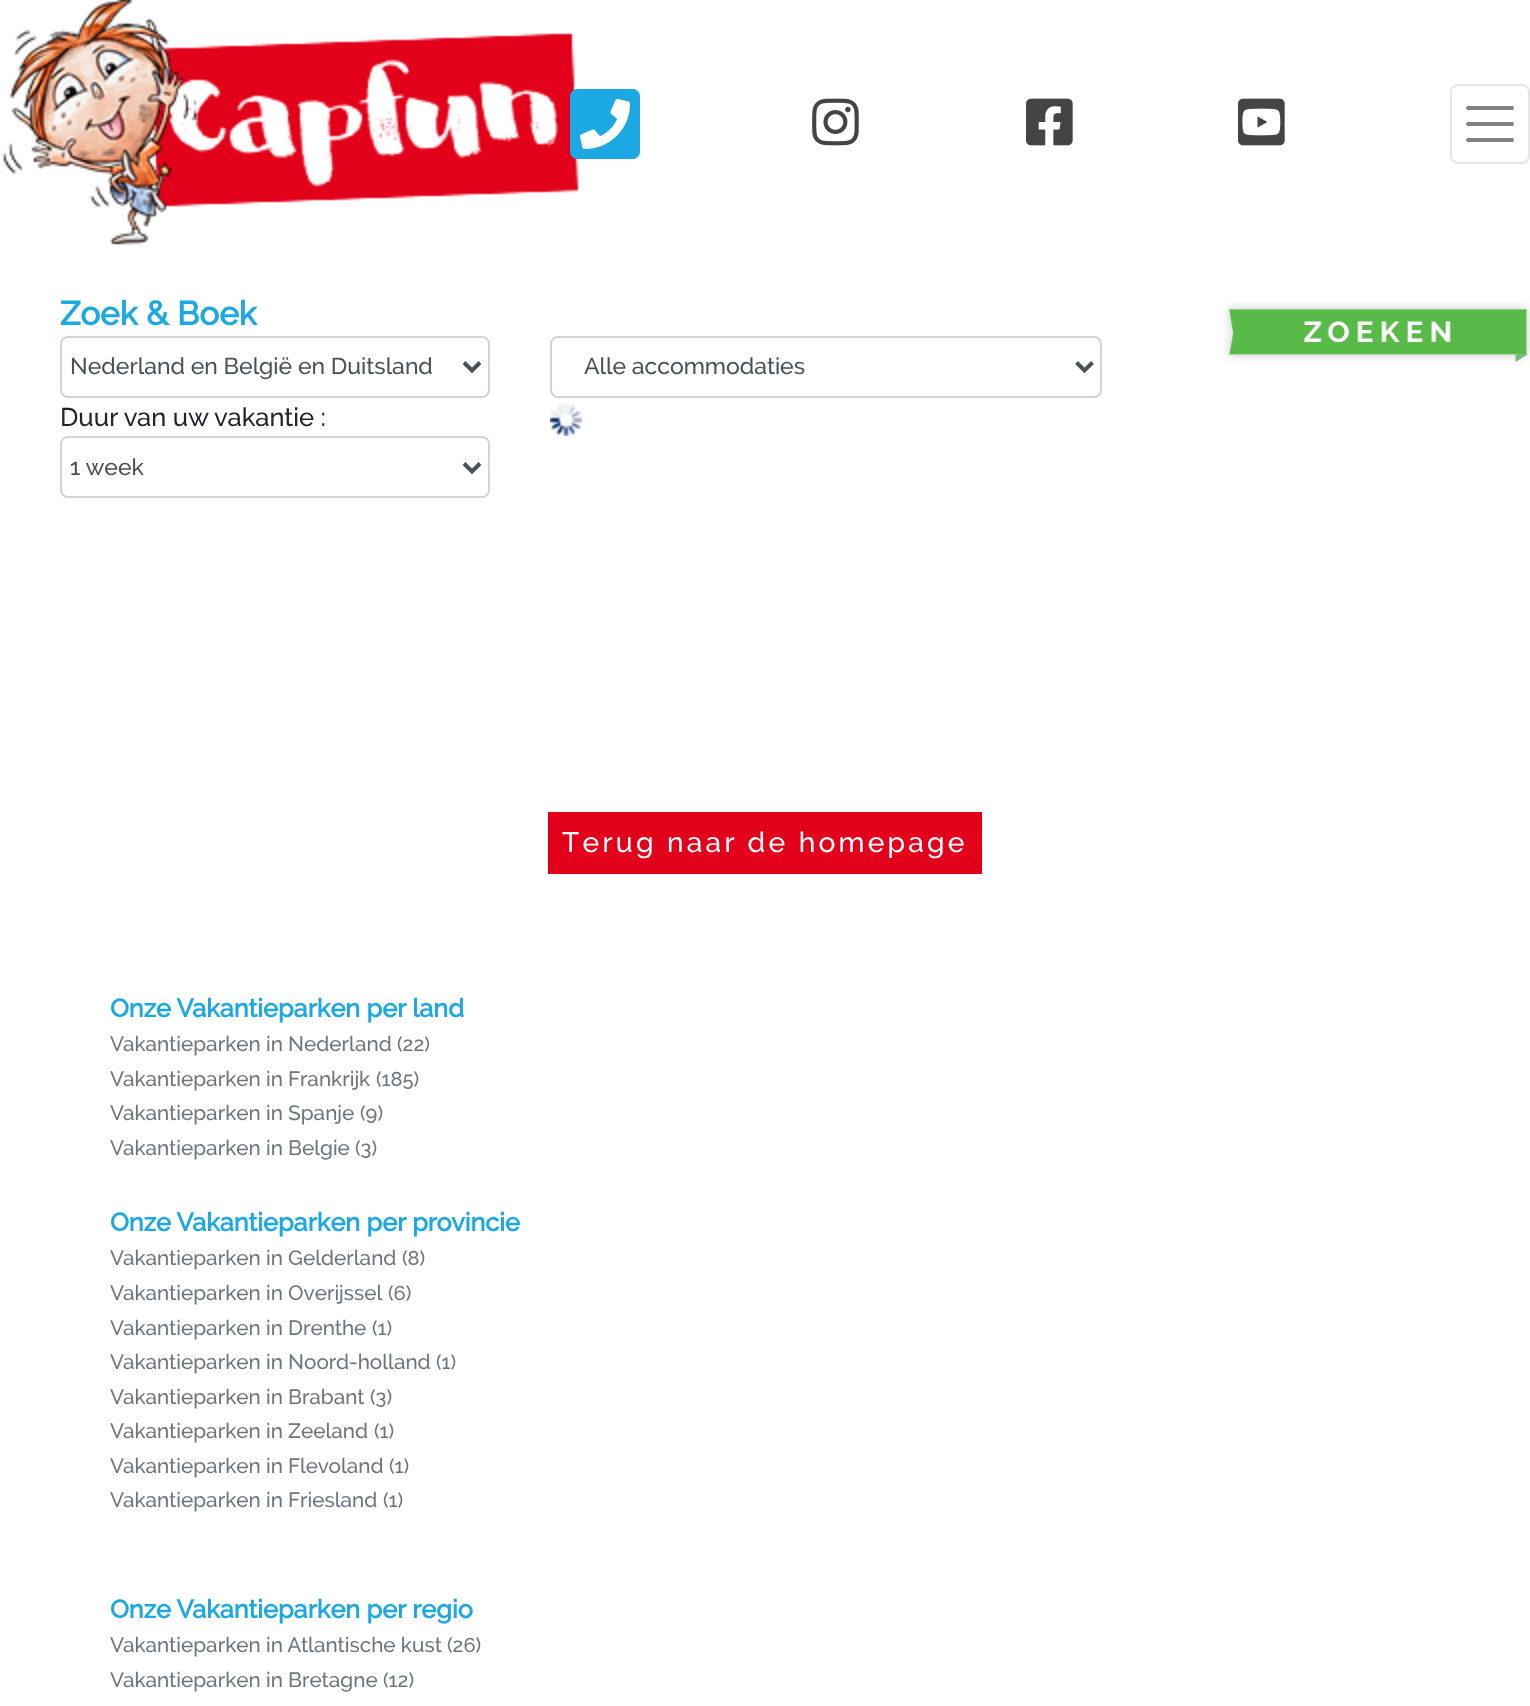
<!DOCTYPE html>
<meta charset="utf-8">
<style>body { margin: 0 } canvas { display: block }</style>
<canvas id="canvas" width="1530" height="1706"></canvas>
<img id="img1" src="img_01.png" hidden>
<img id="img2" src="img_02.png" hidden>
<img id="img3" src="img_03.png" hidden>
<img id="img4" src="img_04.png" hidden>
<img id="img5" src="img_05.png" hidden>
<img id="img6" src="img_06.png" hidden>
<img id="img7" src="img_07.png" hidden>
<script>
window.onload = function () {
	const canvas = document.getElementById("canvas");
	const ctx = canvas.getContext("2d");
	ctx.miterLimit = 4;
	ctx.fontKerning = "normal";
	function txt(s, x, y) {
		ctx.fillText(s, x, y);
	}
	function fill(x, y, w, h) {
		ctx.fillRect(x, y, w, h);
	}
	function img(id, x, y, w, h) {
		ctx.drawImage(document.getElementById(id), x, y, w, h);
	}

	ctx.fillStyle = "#FFFFFF";
	fill(0, 0, 1530, 1706);
	img("img1", 1, 0, 578, 245);
	img("img2", 570, 89, 70, 70);
	img("img3", 812, 98, 47, 48);
	img("img4", 1026, 98, 47, 48);
	img("img5", 1238, 98, 47, 48);
	ctx.beginPath();
	ctx.roundRect(1451, 85, 78, 78, 7);
	ctx.strokeStyle = "#E6E6E6";
	ctx.lineWidth = 2;
	ctx.stroke();
	ctx.beginPath();
	ctx.moveTo(1468, 108);
	ctx.lineTo(1512, 108);
	ctx.moveTo(1468, 124);
	ctx.lineTo(1512, 124);
	ctx.moveTo(1468, 140);
	ctx.lineTo(1512, 140);
	ctx.strokeStyle = "#808080";
	ctx.lineWidth = 4;
	ctx.lineCap = "round";
	ctx.stroke();
	img("img6", 1224, 302, 306, 61);
	ctx.beginPath();
	ctx.roundRect(61, 337, 428, 60, 7);
	ctx.strokeStyle = "#CED4DA";
	ctx.lineWidth = 2;
	ctx.stroke();
	ctx.beginPath();
	ctx.moveTo(464, 362.5);
	ctx.lineTo(472, 370.5);
	ctx.lineTo(480, 362.5);
	ctx.strokeStyle = "#495057";
	ctx.lineWidth = 4;
	ctx.lineCap = "butt";
	ctx.stroke();
	ctx.beginPath();
	ctx.roundRect(551, 337, 550, 60, 7);
	ctx.strokeStyle = "#CED4DA";
	ctx.lineWidth = 2;
	ctx.stroke();
	ctx.beginPath();
	ctx.moveTo(1076.5, 362.5);
	ctx.lineTo(1084.5, 370.5);
	ctx.lineTo(1092.5, 362.5);
	ctx.strokeStyle = "#495057";
	ctx.lineWidth = 4;
	ctx.stroke();
	ctx.beginPath();
	ctx.roundRect(61, 437, 428, 60, 7);
	ctx.strokeStyle = "#CED4DA";
	ctx.lineWidth = 2;
	ctx.stroke();
	ctx.beginPath();
	ctx.moveTo(464, 463.5);
	ctx.lineTo(472, 471.5);
	ctx.lineTo(480, 463.5);
	ctx.strokeStyle = "#495057";
	ctx.lineWidth = 4;
	ctx.stroke();
	img("img7", 550, 404, 32, 32);
	ctx.fillStyle = "#E3001A";
	fill(548, 812, 434, 62);
	ctx.font = "bold 33.25px Raleway";
	ctx.fillStyle = "#1CA9E3";
	txt("Zoek & Boek", 60, 325);
	ctx.font = "500 23px Raleway";
	ctx.fillStyle = "#495057";
	txt("Nederland en België en Duitsland", 70, 374);
	txt("Alle accommodaties", 584, 374);
	ctx.font = "500 25.6px Raleway";
	ctx.fillStyle = "#212529";
	txt("Duur van uw vakantie :", 60, 426);
	ctx.font = "500 23px Raleway";
	ctx.fillStyle = "#495057";
	txt("1 week", 70, 475);
	ctx.letterSpacing = "3.2px";
	ctx.font = "500 28.2px Raleway";
	ctx.fillStyle = "#FFFFFF";
	txt("Terug naar de homepage", 562, 852);
	ctx.letterSpacing = "0px";
	ctx.font = "bold 25.3px Raleway";
	ctx.fillStyle = "#1CA9E3";
	txt("Onze Vakantieparken per land", 110, 1017);
	ctx.font = "500 20.75px Raleway";
	ctx.fillStyle = "#6C757D";
	txt("Vakantieparken in Nederland", 110, 1051);
	ctx.font = "500 20px Raleway";
	txt("(22)", 397, 1051);
	ctx.font = "500 20.75px Raleway";
	txt("Vakantieparken in Frankrijk", 110, 1086);
	ctx.font = "500 20px Raleway";
	txt("(185)", 376, 1086);
	ctx.font = "500 20.75px Raleway";
	txt("Vakantieparken in Spanje", 110, 1120);
	ctx.font = "500 20px Raleway";
	txt("(9)", 360, 1120);
	ctx.font = "500 20.75px Raleway";
	txt("Vakantieparken in Belgie", 110, 1155);
	ctx.font = "500 20px Raleway";
	txt("(3)", 355, 1155);
	ctx.font = "bold 25.3px Raleway";
	ctx.fillStyle = "#1CA9E3";
	txt("Onze Vakantieparken per provincie", 110, 1231);
	ctx.font = "500 20.75px Raleway";
	ctx.fillStyle = "#6C757D";
	txt("Vakantieparken in Gelderland", 110, 1265);
	ctx.font = "500 20px Raleway";
	txt("(8)", 402, 1265);
	ctx.font = "500 20.75px Raleway";
	txt("Vakantieparken in Overijssel", 110, 1300);
	ctx.font = "500 20px Raleway";
	txt("(6)", 388, 1300);
	ctx.font = "500 20.75px Raleway";
	txt("Vakantieparken in Drenthe", 110, 1335);
	ctx.font = "500 20px Raleway";
	txt("(1)", 372, 1335);
	ctx.font = "500 20.75px Raleway";
	txt("Vakantieparken in Noord-holland", 110, 1369);
	ctx.font = "500 20px Raleway";
	txt("(1)", 436, 1369);
	ctx.font = "500 20.75px Raleway";
	txt("Vakantieparken in Brabant", 110, 1404);
	ctx.font = "500 20px Raleway";
	txt("(3)", 370, 1404);
	ctx.font = "500 20.75px Raleway";
	txt("Vakantieparken in Zeeland", 110, 1438);
	ctx.font = "500 20px Raleway";
	txt("(1)", 374, 1438);
	ctx.font = "500 20.75px Raleway";
	txt("Vakantieparken in Flevoland", 110, 1473);
	ctx.font = "500 20px Raleway";
	txt("(1)", 389, 1473);
	ctx.font = "500 20.75px Raleway";
	txt("Vakantieparken in Friesland", 110, 1507);
	ctx.font = "500 20px Raleway";
	txt("(1)", 383, 1507);
	ctx.font = "bold 25.3px Raleway";
	ctx.fillStyle = "#1CA9E3";
	txt("Onze Vakantieparken per regio", 110, 1618);
	ctx.font = "500 20.75px Raleway";
	ctx.fillStyle = "#6C757D";
	txt("Vakantieparken in Atlantische kust", 110, 1652);
	ctx.font = "500 20px Raleway";
	txt("(26)", 447, 1652);
	ctx.font = "500 20.75px Raleway";
	txt("Vakantieparken in Bretagne", 110, 1687);
	ctx.font = "500 20px Raleway";
	txt("(12)", 383, 1687);
};
</script>
